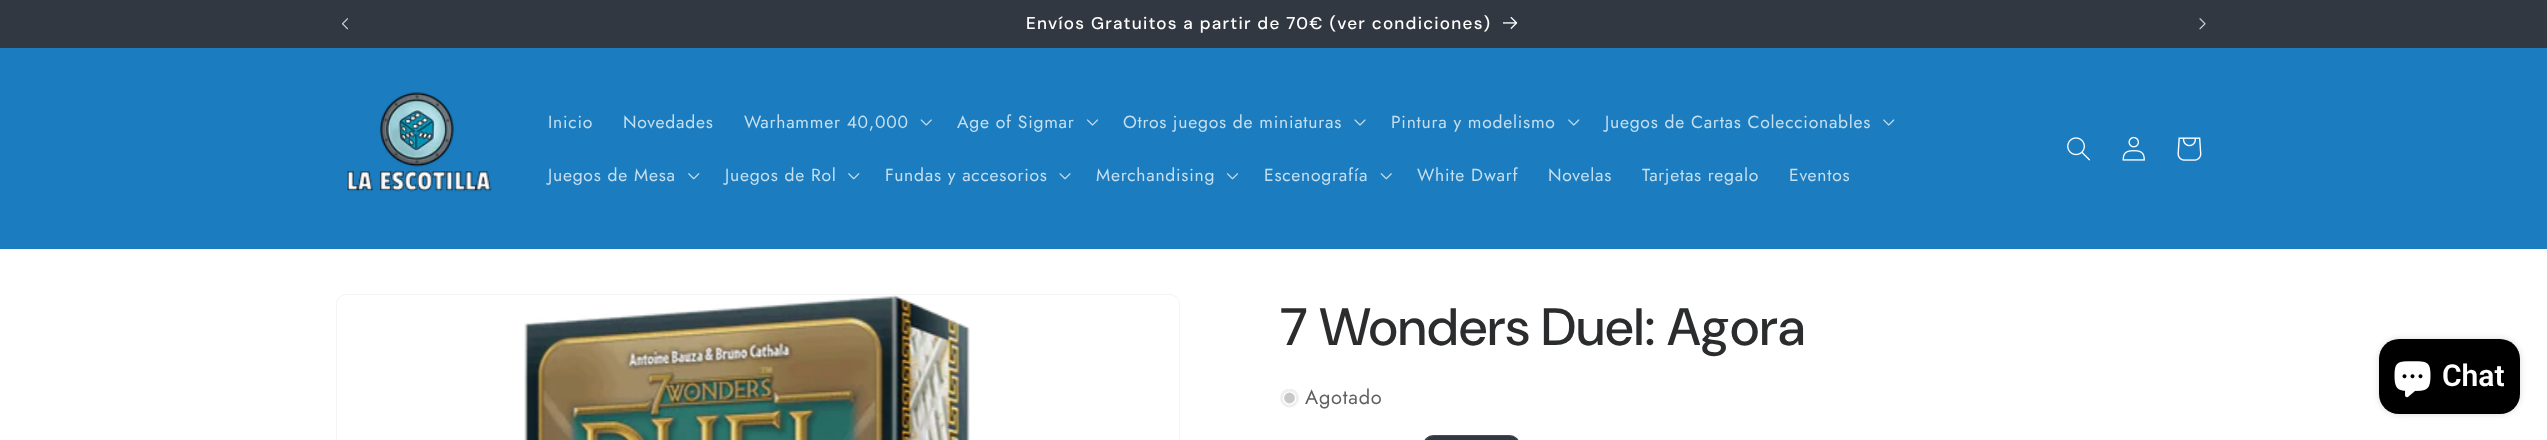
<!DOCTYPE html>
<meta charset="utf-8">
<style>body { margin: 0 } canvas { display: block }</style>
<canvas id="canvas" width="2547" height="440"></canvas>
<img id="img1" src="img_01.png" hidden>
<img id="img2" src="img_02.png" hidden>
<img id="img3" src="img_03.png" hidden>
<img id="img4" src="img_04.png" hidden>
<img id="img5" src="img_05.png" hidden>
<img id="img6" src="img_06.png" hidden>
<img id="img7" src="img_07.png" hidden>
<img id="img8" src="img_08.png" hidden>
<img id="img9" src="img_09.png" hidden>
<img id="img10" src="img_10.png" hidden>
<img id="img11" src="img_11.png" hidden>
<img id="img12" src="img_12.png" hidden>
<img id="img13" src="img_13.png" hidden>
<img id="img14" src="img_14.png" hidden>
<img id="img15" src="img_15.png" hidden>
<img id="img16" src="img_16.png" hidden>
<img id="img17" src="img_17.png" hidden>
<script>
window.onload = function () {
	const canvas = document.getElementById("canvas");
	const ctx = canvas.getContext("2d");
	ctx.miterLimit = 4;
	ctx.fontKerning = "normal";
	function txt(s, x, y) {
		ctx.fillText(s, x, y);
	}
	function fill(x, y, w, h) {
		ctx.fillRect(x, y, w, h);
	}
	function round(x, y, w, h, r) {
		ctx.beginPath();
		ctx.roundRect(x, y, w, h, r);
		ctx.fill();
	}
	function img(id, x, y, w, h) {
		ctx.drawImage(document.getElementById(id), x, y, w, h);
	}

	ctx.fillStyle = "#FFFFFF";
	fill(0, 0, 2547, 440);
	ctx.fillStyle = "#323841";
	fill(0, 0, 2547, 48);
	img("img1", 342, 18, 6, 12);
	img("img2", 1503, 16, 15, 13);
	img("img3", 2199, 18, 7, 12);
	ctx.fillStyle = "#1B7DBF";
	fill(0, 48, 2547, 201);
	img("img4", 347, 92, 145, 100);
	img("img5", 920, 119, 12, 7);
	img("img6", 1087, 119, 11, 7);
	img("img7", 1354, 119, 12, 7);
	img("img8", 1568, 119, 12, 7);
	img("img8", 1883, 119, 12, 7);
	img("img9", 688, 173, 12, 7);
	img("img9", 848, 173, 12, 7);
	img("img10", 1059, 173, 12, 7);
	img("img11", 1226, 173, 13, 7);
	img("img12", 1380, 173, 12, 7);
	img("img13", 2067, 137, 23, 24);
	img("img14", 2122, 136, 23, 25);
	img("img15", 2177, 137, 25, 24);
	ctx.beginPath();
	ctx.roundRect(336.5, 294.5, 843, 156, 9.5);
	ctx.strokeStyle = "#F4F4F5";
	ctx.stroke();
	img("img16", 524, 295, 446, 145);
	ctx.save();
	ctx.beginPath();
	ctx.rect(1280, 389, 19, 19);
	ctx.clip();
	ctx.fillStyle = "#EFEFEF";
	ctx.beginPath();
	ctx.arc(1289.5, 398, 9.5, 0, Math.PI * 2);
	ctx.fill();
	ctx.restore();
	ctx.fillStyle = "#C8C8C8";
	ctx.beginPath();
	ctx.arc(1289.5, 398, 6, 0, Math.PI * 2);
	ctx.fill();
	ctx.strokeStyle = "#FFFFFF";
	ctx.lineWidth = 1.2;
	ctx.stroke();
	ctx.fillStyle = "#323841";
	round(1423, 435, 97, 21, 15.5);
	ctx.beginPath();
	ctx.roundRect(1423.5, 435.5, 96, 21, 15);
	ctx.strokeStyle = "rgba(255, 255, 255, 0.1)";
	ctx.lineWidth = 1;
	ctx.stroke();
	ctx.fillStyle = "rgba(0, 0, 0, 0.15)";
	ctx.filter = "blur(3px)";
	ctx.beginPath();
	ctx.roundRect(2379, 339, 141, 75, 20);
	ctx.fill();
	ctx.filter = "none";
	ctx.fillStyle = "#000000";
	round(2379, 339, 141, 75, 20);
	img("img17", 2394, 361, 37, 37);
	ctx.letterSpacing = "1.25px";
	ctx.font = "500 17.05px 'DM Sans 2'";
	ctx.fillStyle = "#FFFFFF";
	txt("Envíos Gratuitos a partir de 70€ (ver condiciones)", 1026, 29);
	ctx.letterSpacing = "0.75px";
	ctx.font = "17.5px Jost";
	ctx.fillStyle = "#C6DFEF";
	txt("Inicio", 548, 128);
	txt("Novedades", 623, 128);
	txt("Warhammer 40,000", 744, 128);
	txt("Age of Sigmar", 957, 128);
	txt("Otros juegos de miniaturas", 1123, 128);
	txt("Pintura y modelismo", 1391, 128);
	txt("Juegos de Cartas Coleccionables", 1605, 128);
	txt("Juegos de Mesa", 548, 181);
	txt("Juegos de Rol", 725, 181);
	txt("Fundas y accesorios", 885, 181);
	txt("Merchandising", 1096, 181);
	txt("Escenografía", 1264, 181);
	txt("White Dwarf", 1417, 181);
	txt("Novelas", 1548, 181);
	txt("Tarjetas regalo", 1642, 181);
	txt("Eventos", 1789, 181);
	ctx.font = "500 52.5px DM Sans";
	ctx.fillStyle = "#2B2C2D";
	txt("7 Wonders Duel: Agora", 1280, 345);
	ctx.font = "20px Jost";
	ctx.fillStyle = "#606162";
	txt("Agotado", 1305, 404);
	ctx.letterSpacing = "0px";
	ctx.font = "600 30px Roboto";
	ctx.fillStyle = "#FFFFFF";
	txt("Chat", 2442, 386);
};
</script>
